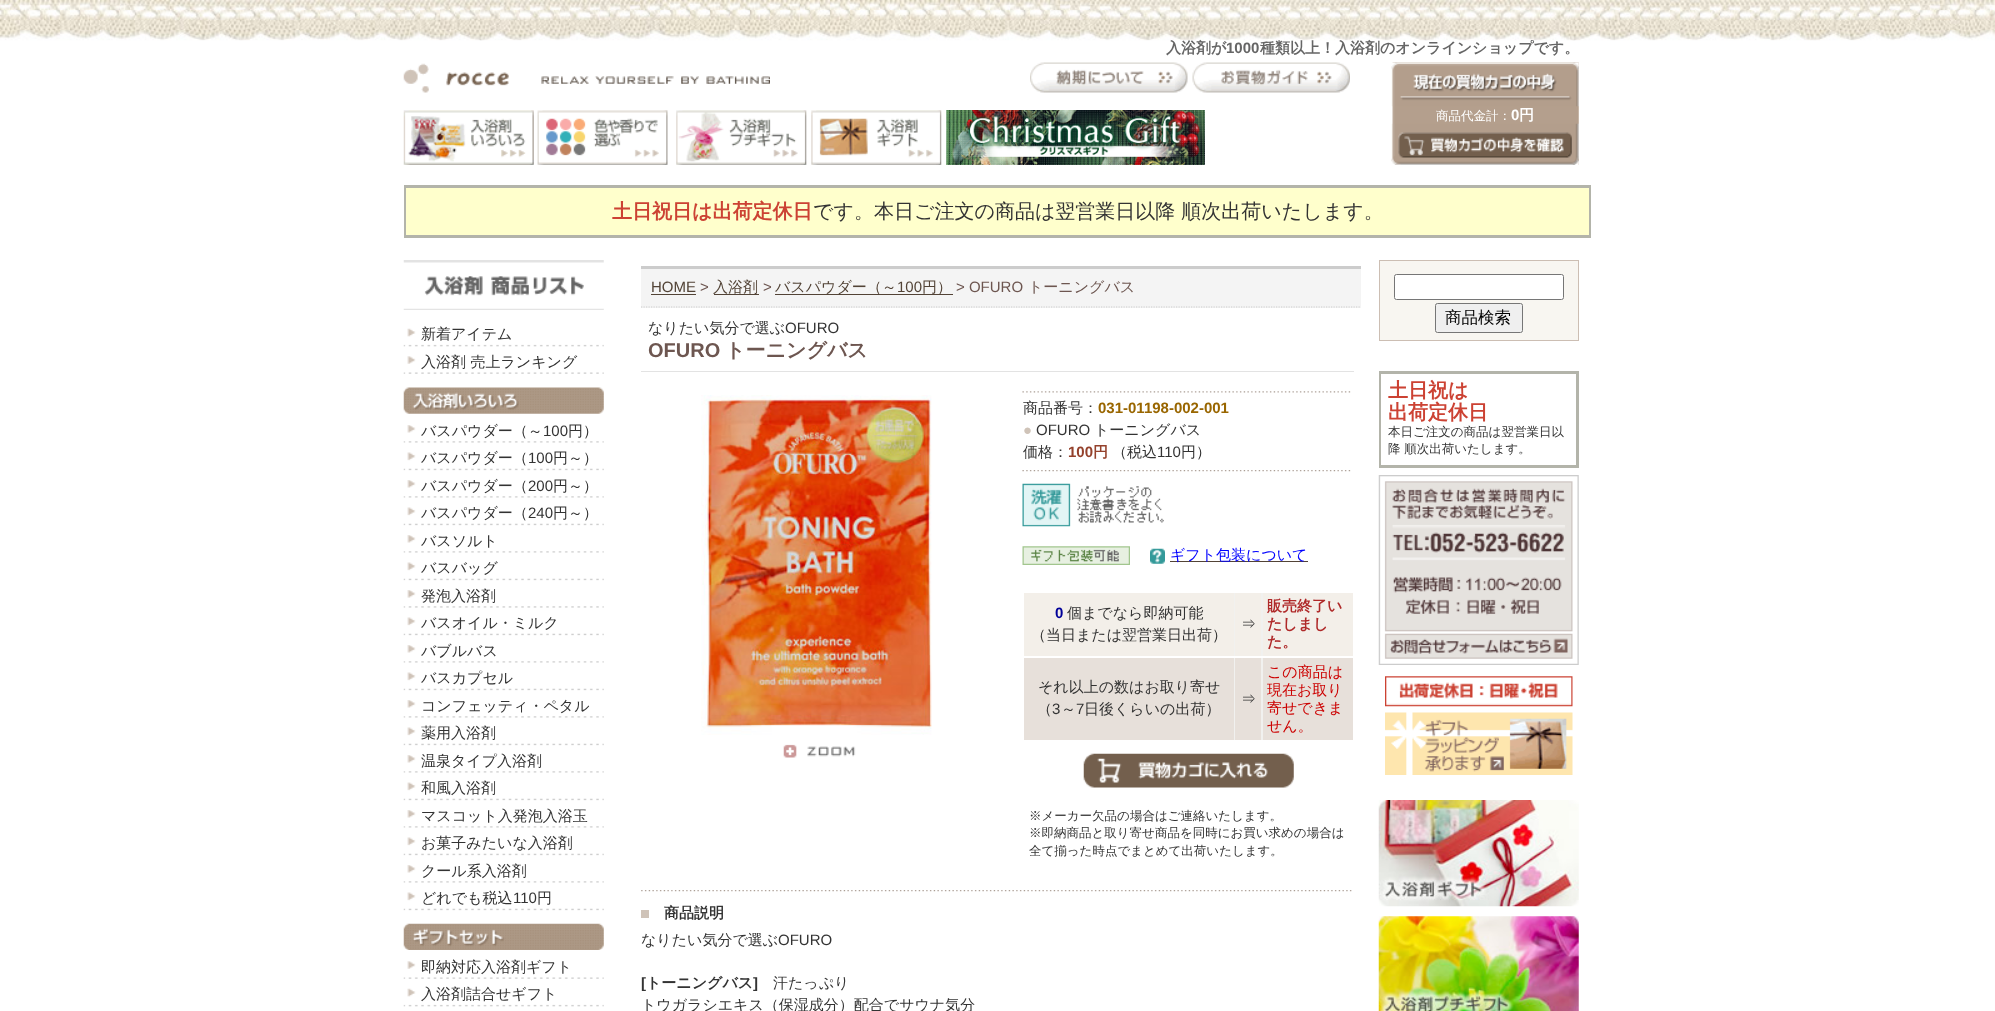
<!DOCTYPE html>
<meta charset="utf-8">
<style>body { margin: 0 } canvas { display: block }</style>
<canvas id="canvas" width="1995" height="1011"></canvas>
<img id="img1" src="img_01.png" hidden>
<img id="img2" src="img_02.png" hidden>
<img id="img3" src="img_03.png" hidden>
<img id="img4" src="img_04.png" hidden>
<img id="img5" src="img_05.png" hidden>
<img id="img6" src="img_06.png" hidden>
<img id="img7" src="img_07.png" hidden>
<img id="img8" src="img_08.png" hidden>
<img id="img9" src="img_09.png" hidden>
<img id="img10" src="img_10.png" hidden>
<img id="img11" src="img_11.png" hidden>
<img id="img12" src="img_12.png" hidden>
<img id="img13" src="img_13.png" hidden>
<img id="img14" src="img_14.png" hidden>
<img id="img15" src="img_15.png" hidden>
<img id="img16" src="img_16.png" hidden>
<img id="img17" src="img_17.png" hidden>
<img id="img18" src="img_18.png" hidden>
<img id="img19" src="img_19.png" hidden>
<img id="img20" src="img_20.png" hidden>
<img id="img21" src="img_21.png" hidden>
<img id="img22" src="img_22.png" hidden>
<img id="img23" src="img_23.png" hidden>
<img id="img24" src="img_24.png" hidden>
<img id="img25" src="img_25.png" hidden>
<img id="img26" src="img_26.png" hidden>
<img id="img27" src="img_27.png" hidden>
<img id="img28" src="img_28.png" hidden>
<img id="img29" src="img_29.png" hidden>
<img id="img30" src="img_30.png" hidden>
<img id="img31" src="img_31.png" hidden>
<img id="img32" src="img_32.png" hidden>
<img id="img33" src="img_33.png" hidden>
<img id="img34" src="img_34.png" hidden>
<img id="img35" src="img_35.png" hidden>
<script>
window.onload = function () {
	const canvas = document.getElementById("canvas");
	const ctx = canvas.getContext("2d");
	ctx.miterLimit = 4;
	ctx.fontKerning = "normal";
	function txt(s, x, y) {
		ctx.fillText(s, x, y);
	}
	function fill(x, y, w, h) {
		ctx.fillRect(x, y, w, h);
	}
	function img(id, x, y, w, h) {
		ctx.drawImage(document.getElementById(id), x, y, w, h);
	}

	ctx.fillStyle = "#FFFFFF";
	fill(0, 0, 1995, 1011);
	img("img1", 0, 0, 1995, 41);
	img("img2", 403, 63, 367, 30);
	img("img3", 1030, 62, 158, 31);
	img("img4", 1192, 62, 158, 31);
	img("img5", 403, 110, 131, 55);
	img("img6", 537, 110, 131, 55);
	img("img7", 676, 110, 131, 55);
	img("img8", 811, 110, 131, 55);
	img("img9", 946, 110, 259, 55);
	img("img10", 1392, 62, 187, 103);
	img("img11", 1391, 62, 188, 45);
	img("img12", 1391, 123, 188, 42);
	ctx.fillStyle = "#B3B4AA";
	fill(404, 185, 1187, 53);
	ctx.fillStyle = "#FFFFCC";
	fill(406, 188, 1183, 47);
	img("img13", 403, 260, 201, 50);
	img("img14", 403, 328, 201, 19);
	img("img15", 403, 356, 201, 18);
	img("img16", 403, 387, 201, 27);
	img("img17", 403, 425, 201, 18);
	img("img18", 403, 452, 201, 19);
	img("img17", 403, 480, 201, 18);
	img("img18", 403, 507, 201, 19);
	img("img17", 403, 535, 201, 18);
	img("img18", 403, 562, 201, 19);
	img("img19", 403, 590, 201, 18);
	img("img18", 403, 617, 201, 19);
	img("img17", 403, 645, 201, 18);
	img("img18", 403, 672, 201, 19);
	img("img17", 403, 700, 201, 18);
	img("img18", 403, 727, 201, 19);
	img("img17", 403, 755, 201, 18);
	img("img20", 403, 782, 201, 19);
	img("img17", 403, 810, 201, 18);
	img("img18", 403, 837, 201, 19);
	img("img17", 403, 865, 201, 18);
	img("img18", 403, 892, 201, 19);
	img("img21", 403, 923, 201, 27);
	img("img15", 403, 961, 201, 18);
	img("img14", 403, 988, 201, 19);
	ctx.fillStyle = "#F4F4F4";
	fill(641, 269, 720, 39);
	ctx.fillStyle = "#CCCCCC";
	fill(641, 266, 720, 3);
	ctx.beginPath();
	ctx.moveTo(641, 307);
	ctx.lineTo(1361, 307);
	ctx.strokeStyle = "#CCCCCC";
	ctx.lineWidth = 1.2;
	ctx.setLineDash([1.25, 1.25]);
	ctx.stroke();
	ctx.fillStyle = "#524336";
	fill(651, 294, 45, 1);
	fill(714, 294, 45, 1);
	fill(775, 294, 178, 1);
	ctx.fillStyle = "#E3E3E3";
	fill(641, 371, 713, 1);
	img("img22", 701, 395, 231, 340);
	img("img23", 783, 744, 73, 14);
	img("img24", 1022, 391, 329, 2);
	img("img25", 1022, 470, 329, 2);
	img("img26", 1022, 483, 142, 44);
	img("img27", 1022, 546, 108, 19);
	img("img28", 1150, 548, 15, 16);
	ctx.fillStyle = "#524336";
	fill(1170, 561, 138, 1);
	ctx.fillStyle = "#F1F1EF";
	fill(1234, 593, 29, 63);
	ctx.fillStyle = "#F3EFE9";
	fill(1024, 593, 210, 63);
	fill(1235, 593, 26, 63);
	fill(1263, 593, 90, 63);
	ctx.fillStyle = "#F1F1EF";
	fill(1234, 658, 29, 82);
	ctx.fillStyle = "#E7E0DA";
	fill(1024, 658, 210, 82);
	fill(1235, 658, 26, 82);
	fill(1263, 658, 90, 82);
	img("img29", 1083, 753, 211, 35);
	img("img30", 641, 890, 711, 2);
	ctx.fillStyle = "#CFC3B8";
	fill(641, 910, 8, 8);
	ctx.fillStyle = "#CCBEB3";
	fill(1379, 260, 200, 81);
	ctx.fillStyle = "#F8F6F1";
	fill(1380, 261, 198, 79);
	ctx.fillStyle = "#FFFFFF";
	ctx.beginPath();
	ctx.roundRect(1394.5, 274.5, 169, 25, 2);
	ctx.fill();
	ctx.strokeStyle = "#767676";
	ctx.lineWidth = 1;
	ctx.setLineDash([]);
	ctx.stroke();
	ctx.fillStyle = "#EFEFEF";
	ctx.beginPath();
	ctx.roundRect(1435.5, 303.5, 87, 29, 2);
	ctx.fill();
	ctx.stroke();
	ctx.fillStyle = "#B3B4AA";
	fill(1379, 371, 200, 97);
	ctx.fillStyle = "#FFFFFF";
	fill(1381, 374, 195, 91);
	img("img31", 1378, 475, 201, 190);
	img("img32", 1385, 676, 188, 31);
	img("img33", 1385, 712, 188, 63);
	img("img34", 1378, 800, 201, 107);
	img("img35", 1378, 916, 201, 95);
	ctx.font = "bold 15px WenQuanYi Zen Hei";
	ctx.fillStyle = "#666666";
	txt("入浴剤が", 1166, 53);
	ctx.font = "bold 15px Liberation Sans";
	txt("1000", 1226, 53);
	ctx.font = "bold 15px WenQuanYi Zen Hei";
	txt("種類以上！入浴剤のオンラインショップです。", 1260, 53);
	ctx.font = "500 12.5px WenQuanYi Zen Hei";
	ctx.fillStyle = "#FFFFFF";
	txt("商品代金計：", 1436, 120);
	ctx.font = "bold 15px Liberation Sans";
	txt("0", 1511, 120);
	ctx.font = "bold 15px WenQuanYi Zen Hei";
	txt("円", 1519, 120);
	ctx.font = "bold 20px WenQuanYi Zen Hei";
	ctx.fillStyle = "#CC4233";
	txt("土日祝日は出荷定休日", 612, 218);
	ctx.font = "500 20px WenQuanYi Zen Hei";
	ctx.fillStyle = "#333333";
	txt("です。本日ご注文の商品は翌営業日以降 順次出荷いたします。", 813, 218);
	ctx.font = "500 15px WenQuanYi Zen Hei";
	txt("新着アイテム", 421, 339);
	txt("入浴剤 売上ランキング", 421, 367);
	txt("バスパウダー（～", 421, 436);
	ctx.font = "15px Liberation Sans";
	txt("100", 543, 436);
	ctx.font = "500 15px WenQuanYi Zen Hei";
	txt("円）", 568, 436);
	txt("バスパウダー（", 421, 463);
	ctx.font = "15px Liberation Sans";
	txt("100", 528, 463);
	ctx.font = "500 15px WenQuanYi Zen Hei";
	txt("円～）", 553, 463);
	txt("バスパウダー（", 421, 491);
	ctx.font = "15px Liberation Sans";
	txt("200", 528, 491);
	ctx.font = "500 15px WenQuanYi Zen Hei";
	txt("円～）", 553, 491);
	txt("バスパウダー（", 421, 518);
	ctx.font = "15px Liberation Sans";
	txt("240", 528, 518);
	ctx.font = "500 15px WenQuanYi Zen Hei";
	txt("円～）", 553, 518);
	txt("バスソルト", 421, 546);
	txt("バスバッグ", 421, 573);
	txt("発泡入浴剤", 421, 601);
	txt("バスオイル・ミルク", 421, 628);
	txt("バブルバス", 421, 656);
	txt("バスカプセル", 421, 683);
	txt("コンフェッティ・ペタル", 421, 711);
	txt("薬用入浴剤", 421, 738);
	txt("温泉タイプ入浴剤", 421, 766);
	txt("和風入浴剤", 421, 793);
	txt("マスコット入発泡入浴玉", 421, 821);
	txt("お菓子みたいな入浴剤", 421, 848);
	txt("クール系入浴剤", 421, 876);
	txt("どれでも税込", 421, 903);
	ctx.font = "15px Liberation Sans";
	txt("110", 513, 903);
	ctx.font = "500 15px WenQuanYi Zen Hei";
	txt("円", 537, 903);
	txt("即納対応入浴剤ギフト", 421, 972);
	txt("入浴剤詰合せギフト", 421, 999);
	ctx.font = "15px Liberation Sans";
	ctx.fillStyle = "#524336";
	txt("HOME", 651, 292);
	ctx.fillStyle = "#6D5650";
	txt(">", 700, 292);
	ctx.font = "500 15px WenQuanYi Zen Hei";
	ctx.fillStyle = "#524336";
	txt("入浴剤", 713, 292);
	ctx.font = "15px Liberation Sans";
	ctx.fillStyle = "#6D5650";
	txt(">", 763, 292);
	ctx.font = "500 15px WenQuanYi Zen Hei";
	ctx.fillStyle = "#524336";
	txt("バスパウダー（～", 775, 292);
	ctx.font = "15px Liberation Sans";
	txt("100", 897, 292);
	ctx.font = "500 15px WenQuanYi Zen Hei";
	txt("円）", 922, 292);
	ctx.font = "15px Liberation Sans";
	ctx.fillStyle = "#6D5650";
	txt("> OFURO", 956, 292);
	ctx.font = "500 15px WenQuanYi Zen Hei";
	txt("トーニングバス", 1028, 292);
	ctx.fillStyle = "#333333";
	txt("なりたい気分で選ぶ", 648, 333);
	ctx.font = "15px Liberation Sans";
	txt("OFURO", 785, 333);
	ctx.font = "bold 20px Liberation Sans";
	ctx.fillStyle = "#6D5650";
	txt("OFURO", 648, 357);
	ctx.font = "bold 20px WenQuanYi Zen Hei";
	txt("トーニングバス", 725, 357);
	ctx.font = "500 15px WenQuanYi Zen Hei";
	ctx.fillStyle = "#333333";
	txt("商品番号：", 1023, 413);
	ctx.font = "bold 15px Liberation Sans";
	ctx.fillStyle = "#996600";
	txt("031-01198-002-001", 1098, 413);
	ctx.font = "15px Liberation Sans";
	ctx.fillStyle = "#CFC3B8";
	txt("●", 1023, 435);
	ctx.fillStyle = "#333333";
	txt("OFURO", 1036, 435);
	ctx.font = "500 15px WenQuanYi Zen Hei";
	txt("トーニングバス", 1094, 435);
	txt("価格：", 1023, 457);
	ctx.font = "bold 15px Liberation Sans";
	ctx.fillStyle = "#94412C";
	txt("100", 1068, 457);
	ctx.font = "bold 15px WenQuanYi Zen Hei";
	txt("円", 1093, 457);
	ctx.font = "500 15px WenQuanYi Zen Hei";
	ctx.fillStyle = "#333333";
	txt("（税込", 1112, 457);
	ctx.font = "15px Liberation Sans";
	txt("110", 1157, 457);
	ctx.font = "500 15px WenQuanYi Zen Hei";
	txt("円）", 1181, 457);
	ctx.fillStyle = "#0000FF";
	txt("ギフト包装について", 1170, 560);
	ctx.font = "bold 15px Liberation Sans";
	ctx.fillStyle = "#000099";
	txt("0", 1055, 618);
	ctx.font = "500 15px WenQuanYi Zen Hei";
	ctx.fillStyle = "#333333";
	txt("個までなら即納可能", 1067, 618);
	txt("（当日または翌営業日出荷）", 1031, 640);
	txt("⇒", 1241, 629);
	ctx.font = "bold 15px WenQuanYi Zen Hei";
	ctx.fillStyle = "#AF2929";
	txt("販売終了い", 1267, 611);
	txt("たしまし", 1267, 629);
	txt("た。", 1267, 647);
	ctx.font = "500 15px WenQuanYi Zen Hei";
	ctx.fillStyle = "#333333";
	txt("それ以上の数はお取り寄せ", 1038, 692);
	txt("（", 1037, 714);
	ctx.font = "15px Liberation Sans";
	txt("3", 1052, 714);
	ctx.font = "500 15px WenQuanYi Zen Hei";
	txt("～", 1061, 714);
	ctx.font = "15px Liberation Sans";
	txt("7", 1076, 714);
	ctx.font = "500 15px WenQuanYi Zen Hei";
	txt("日後くらいの出荷）", 1084, 714);
	txt("⇒", 1241, 704);
	ctx.fillStyle = "#CC0000";
	txt("この商品は", 1267, 677);
	txt("現在お取り", 1267, 695);
	txt("寄せできま", 1267, 713);
	txt("せん。", 1267, 731);
	ctx.font = "500 12.5px WenQuanYi Zen Hei";
	ctx.fillStyle = "#333333";
	txt("※メーカー欠品の場合はご連絡いたします。", 1029, 820);
	txt("※即納商品と取り寄せ商品を同時にお買い求めの場合は", 1029, 837);
	txt("全て揃った時点でまとめて出荷いたします。", 1029, 855);
	ctx.font = "bold 15px WenQuanYi Zen Hei";
	txt("商品説明", 664, 918);
	ctx.font = "500 15px WenQuanYi Zen Hei";
	txt("なりたい気分で選ぶ", 641, 945);
	ctx.font = "15px Liberation Sans";
	txt("OFURO", 778, 945);
	ctx.font = "bold 15px Liberation Sans";
	txt("[", 641, 988);
	ctx.font = "bold 15px WenQuanYi Zen Hei";
	txt("トーニングバス", 646, 988);
	ctx.font = "bold 15px Liberation Sans";
	txt("]", 753, 988);
	ctx.font = "500 15px WenQuanYi Zen Hei";
	txt("汗たっぷり", 773, 988);
	txt("トウガラシエキス（保湿成分）配合でサウナ気分", 641, 1010);
	ctx.font = "500 16.5px WenQuanYi Zen Hei";
	ctx.fillStyle = "#000000";
	txt("商品検索", 1445, 323);
	ctx.font = "bold 20px WenQuanYi Zen Hei";
	ctx.fillStyle = "#CC4233";
	txt("土日祝は", 1388, 397);
	txt("出荷定休日", 1388, 419);
	ctx.font = "500 12.5px WenQuanYi Zen Hei";
	ctx.fillStyle = "#333333";
	txt("本日ご注文の商品は翌営業日以", 1388, 436);
	txt("降 順次出荷いたします。", 1388, 453);
};
</script>
